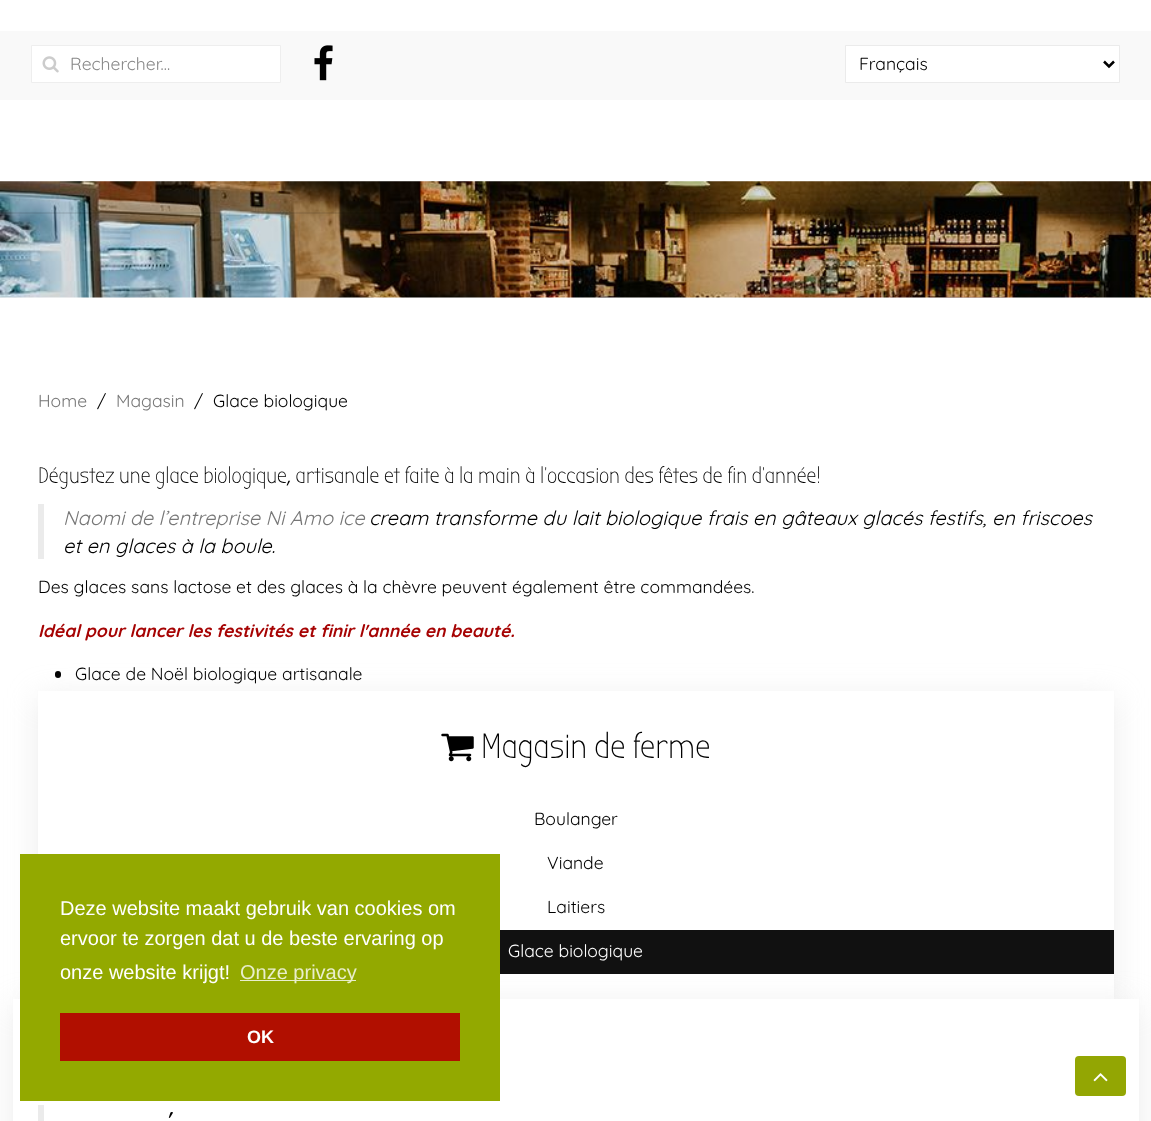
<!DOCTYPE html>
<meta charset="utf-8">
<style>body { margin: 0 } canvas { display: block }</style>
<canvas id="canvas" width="1151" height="1121"></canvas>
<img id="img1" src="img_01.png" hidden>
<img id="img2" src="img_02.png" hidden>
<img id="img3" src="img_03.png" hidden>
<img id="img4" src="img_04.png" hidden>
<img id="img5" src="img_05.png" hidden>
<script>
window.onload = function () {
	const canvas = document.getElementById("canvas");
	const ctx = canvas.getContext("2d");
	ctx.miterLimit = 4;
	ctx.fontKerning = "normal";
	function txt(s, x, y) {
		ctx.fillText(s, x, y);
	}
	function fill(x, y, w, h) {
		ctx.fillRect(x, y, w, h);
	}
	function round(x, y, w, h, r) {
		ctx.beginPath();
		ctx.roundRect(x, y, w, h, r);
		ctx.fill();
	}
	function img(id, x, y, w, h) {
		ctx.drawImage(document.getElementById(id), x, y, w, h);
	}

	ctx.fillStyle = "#FFFFFF";
	fill(0, 0, 1151, 1121);
	ctx.fillStyle = "#F9F9F9";
	fill(0, 31, 1151, 69);
	ctx.fillStyle = "#FFFFFF";
	ctx.beginPath();
	ctx.rect(31.5, 45.5, 249, 37);
	ctx.fill();
	ctx.strokeStyle = "#EEEEEE";
	ctx.stroke();
	img("img1", 42, 56, 17, 17);
	img("img2", 314, 45, 19, 36);
	ctx.beginPath();
	ctx.rect(845.5, 45.5, 274, 37);
	ctx.fill();
	ctx.strokeStyle = "#EBEBEB";
	ctx.stroke();
	ctx.beginPath();
	ctx.moveTo(1104, 61.5);
	ctx.lineTo(1109, 66.5);
	ctx.lineTo(1114, 61.5);
	ctx.strokeStyle = "#000000";
	ctx.lineWidth = 2.5;
	ctx.stroke();
	img("img3", 0, 181, 1151, 117);
	ctx.fillStyle = "rgba(0, 0, 0, 0.08)";
	fill(0, 212, 1151, 2);
	ctx.fillStyle = "#EBEBEB";
	fill(38, 504, 6, 55);
	ctx.fillStyle = "#000000";
	round(55, 671, 6, 7, 3);
	ctx.fillStyle = "rgba(204, 204, 204, 0.4)";
	ctx.filter = "blur(15.5px)";
	ctx.beginPath();
	ctx.rect(38, 698, 1076, 307);
	ctx.fill();
	ctx.filter = "none";
	ctx.fillStyle = "#FFFFFF";
	fill(38, 691, 1076, 308);
	img("img4", 441, 733, 33, 29);
	ctx.fillStyle = "#111111";
	fill(500, 930, 614, 44);
	ctx.fillStyle = "rgba(204, 204, 204, 0.4)";
	ctx.filter = "blur(15.5px)";
	ctx.beginPath();
	ctx.rect(13, 1005, 1126, 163);
	ctx.fill();
	ctx.filter = "none";
	ctx.fillStyle = "#FFFFFF";
	fill(13, 999, 1126, 122);
	ctx.fillStyle = "#EBEBEB";
	fill(38, 1105, 6, 16);
	ctx.fillStyle = "#93A900";
	fill(20, 854, 480, 247);
	ctx.fillStyle = "#E9EECC";
	fill(240, 980, 116, 1);
	ctx.fillStyle = "#B10F00";
	fill(60, 1013, 400, 48);
	ctx.fillStyle = "#93A603";
	round(1075, 1056, 51, 40, 4);
	img("img5", 1093, 1073, 15, 9);
	ctx.font = "17.5px Quicksand";
	ctx.fillStyle = "#888888";
	txt("Rechercher...", 70, 70);
	ctx.fillStyle = "#000000";
	txt("Français", 859, 70);
	ctx.fillStyle = "#777777";
	txt("Home", 38, 407);
	ctx.fillStyle = "#000000";
	txt("/", 97, 407);
	ctx.fillStyle = "#777777";
	txt("Magasin", 116, 407);
	ctx.fillStyle = "#000000";
	txt("/", 194, 407);
	txt("Glace biologique", 213, 407);
	ctx.font = "22.5px Bubbler One";
	txt("Dégustez une glace biologique, artisanale et faite à la main à l'occasion des fêtes de fin d'année!", 38, 483);
	ctx.font = "italic 20px Quicksand";
	ctx.fillStyle = "#777777";
	txt("Naomi de l’entreprise Ni Amo ice", 63, 525);
	ctx.fillStyle = "#000000";
	txt("cream transforme du lait biologique frais en gâteaux glacés festifs, en friscoes", 369, 525);
	txt("et en glaces à la boule.", 63, 553);
	ctx.font = "17.5px Quicksand";
	txt("Des glaces sans lactose et des glaces à la chèvre peuvent également être commandées.", 38, 593);
	ctx.font = "italic bold 17.5px Quicksand";
	ctx.fillStyle = "#A60303";
	txt("Idéal pour lancer les festivités et finir l'année en beauté.", 38, 637);
	ctx.font = "17.5px Quicksand";
	ctx.fillStyle = "#000000";
	txt("Glace de Noël biologique artisanale", 75, 680);
	ctx.font = "35px Bubbler One";
	txt("Magasin de ferme", 481, 758);
	ctx.font = "17.5px Quicksand";
	txt("Boulanger", 534, 825);
	txt("Viande", 547, 869);
	txt("Laitiers", 547, 913);
	ctx.fillStyle = "#FFFFFF";
	txt("Glace biologique", 508, 957);
	ctx.font = "italic bold 20px Quicksand";
	ctx.fillStyle = "#000000";
	txt("'", 166, 1126);
	ctx.font = "20px Liberation Sans";
	ctx.fillStyle = "#FFFFFF";
	txt("Deze website maakt gebruik van cookies om", 60, 915);
	txt("ervoor te zorgen dat u de beste ervaring op", 60, 945);
	txt("onze website krijgt!", 60, 979);
	ctx.fillStyle = "#E9EECC";
	txt("Onze privacy", 240, 979);
	ctx.font = "bold 18px Liberation Sans";
	ctx.fillStyle = "#FFFFFF";
	txt("OK", 247, 1043);
};
</script>
